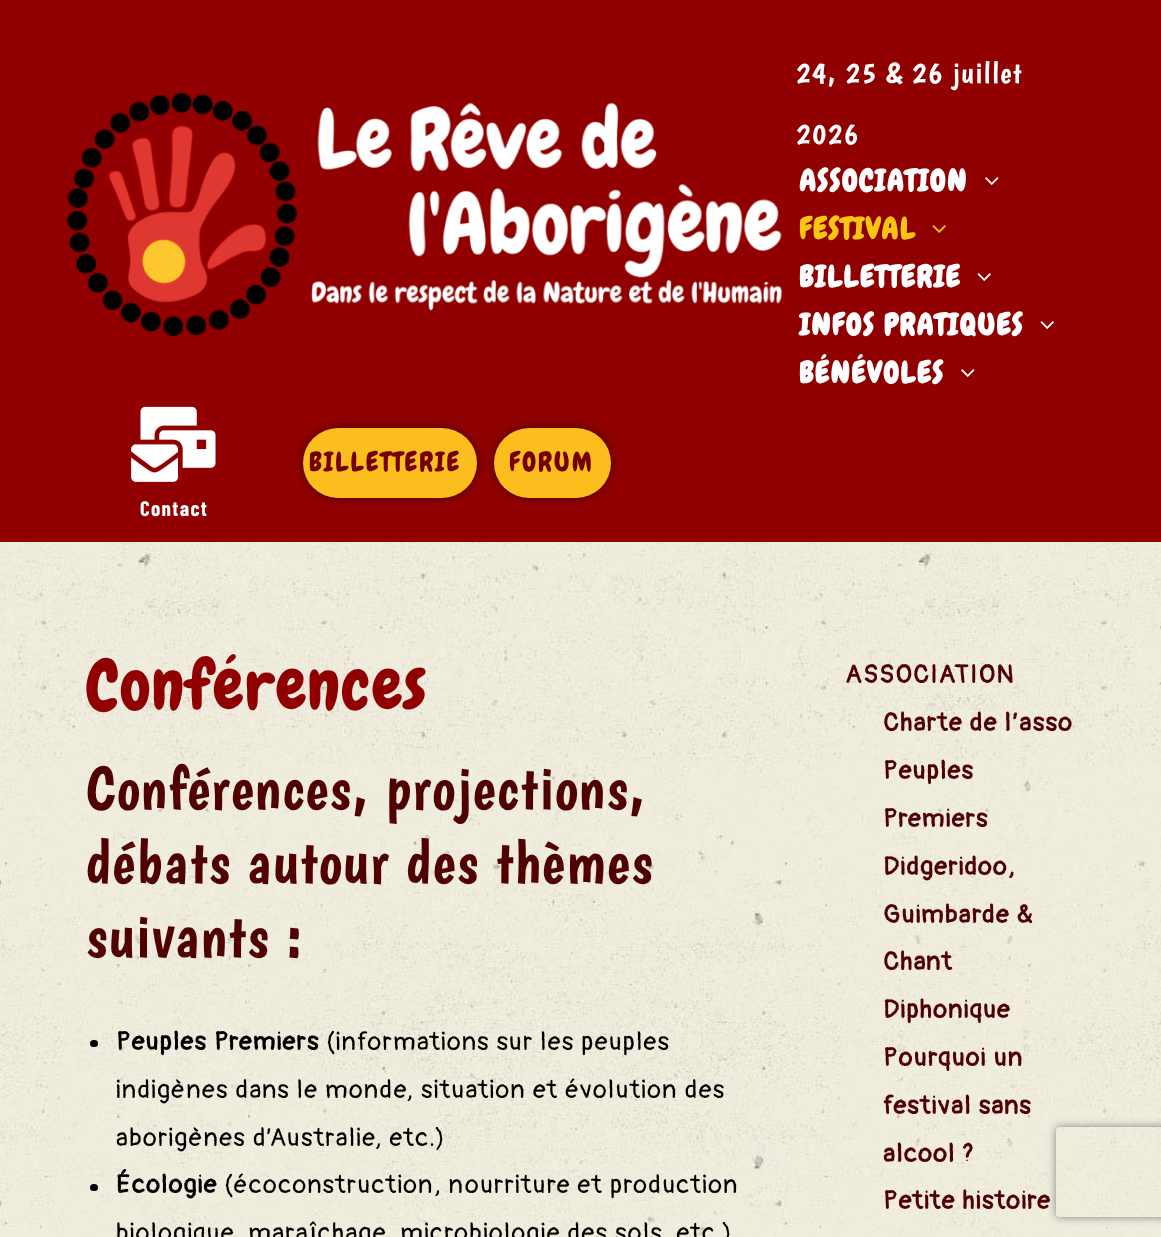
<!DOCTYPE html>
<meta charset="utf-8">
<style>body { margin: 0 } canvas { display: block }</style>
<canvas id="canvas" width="1161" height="1237"></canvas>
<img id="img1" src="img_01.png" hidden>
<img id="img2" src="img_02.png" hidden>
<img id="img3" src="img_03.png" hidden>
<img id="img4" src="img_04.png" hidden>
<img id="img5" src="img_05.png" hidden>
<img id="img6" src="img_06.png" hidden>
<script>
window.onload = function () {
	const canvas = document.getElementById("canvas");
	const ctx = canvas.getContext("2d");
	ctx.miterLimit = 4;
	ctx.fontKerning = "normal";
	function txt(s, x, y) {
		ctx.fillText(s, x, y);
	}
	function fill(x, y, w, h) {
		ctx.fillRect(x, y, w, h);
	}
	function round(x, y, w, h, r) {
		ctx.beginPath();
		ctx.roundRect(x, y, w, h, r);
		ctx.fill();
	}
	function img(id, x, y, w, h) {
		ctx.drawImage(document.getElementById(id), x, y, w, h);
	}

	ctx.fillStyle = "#FFFFFF";
	fill(0, 0, 1161, 1237);
	img("img1", 0, 542, 1161, 695);
	ctx.fillStyle = "#900001";
	fill(0, 0, 1161, 542);
	img("img2", 67, 93, 715, 243);
	img("img3", 985, 177, 14, 8);
	img("img4", 932, 225, 14, 8);
	img("img5", 977, 273, 14, 8);
	img("img5", 1040, 321, 14, 8);
	img("img3", 961, 369, 14, 8);
	ctx.fillStyle = "rgba(0, 0, 0, 0.5)";
	ctx.filter = "blur(5px)";
	ctx.beginPath();
	ctx.roundRect(303, 428, 174, 70, 35);
	ctx.fill();
	ctx.filter = "none";
	ctx.fillStyle = "#FCBD1E";
	round(303, 428, 174, 70, 35);
	ctx.fillStyle = "rgba(0, 0, 0, 0.5)";
	ctx.filter = "blur(5px)";
	ctx.beginPath();
	ctx.roundRect(494, 428, 117, 70, 35);
	ctx.fill();
	ctx.filter = "none";
	ctx.fillStyle = "#FCBD1E";
	round(494, 428, 117, 70, 35);
	img("img6", 131, 406, 85, 76);
	ctx.fillStyle = "#000000";
	round(90, 1040, 8, 7, 3.5);
	round(90, 1184, 8, 7, 3.5);
	ctx.save();
	ctx.beginPath();
	ctx.moveTo(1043, 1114);
	ctx.lineTo(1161, 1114);
	ctx.lineTo(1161, 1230);
	ctx.lineTo(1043, 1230);
	ctx.closePath();
	ctx.moveTo(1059, 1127);
	ctx.lineTo(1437, 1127);
	ctx.bezierCurveTo(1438.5, 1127, 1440, 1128.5, 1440, 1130);
	ctx.lineTo(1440, 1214);
	ctx.bezierCurveTo(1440, 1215.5, 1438.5, 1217, 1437, 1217);
	ctx.lineTo(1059, 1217);
	ctx.bezierCurveTo(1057.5, 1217, 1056, 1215.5, 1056, 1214);
	ctx.lineTo(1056, 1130);
	ctx.bezierCurveTo(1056, 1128.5, 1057.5, 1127, 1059, 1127);
	ctx.closePath();
	ctx.clip("evenodd");
	ctx.fillStyle = "#808080";
	ctx.filter = "blur(4px)";
	ctx.beginPath();
	ctx.roundRect(1056, 1127, 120, 90, 3);
	ctx.fill();
	ctx.filter = "none";
	ctx.restore();
	ctx.letterSpacing = "1.35px";
	ctx.font = "30px Boogaloo";
	ctx.fillStyle = "#FFFFFF";
	txt("24, 25 & 26 juillet", 796, 83);
	txt("2026", 796, 144);
	ctx.letterSpacing = "1.6px";
	ctx.font = "bold 30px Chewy";
	txt("ASSOCIATION", 799, 191);
	ctx.fillStyle = "#F8C612";
	txt("FESTIVAL", 799, 239);
	ctx.fillStyle = "#FFFFFF";
	txt("BILLETTERIE", 799, 287);
	txt("INFOS PRATIQUES", 799, 335);
	txt("BÉNÉVOLES", 799, 383);
	ctx.letterSpacing = "2px";
	ctx.font = "27px Chewy";
	ctx.fillStyle = "#730100";
	txt("BILLETTERIE", 309, 471);
	txt("FORUM", 509, 471);
	ctx.letterSpacing = "1.35px";
	ctx.font = "bold 21px Barlow Condensed";
	ctx.fillStyle = "#FFFFFF";
	txt("Contact", 140, 516);
	ctx.font = "69px Chewy";
	ctx.fillStyle = "#900001";
	txt("Conférences", 86, 709);
	ctx.font = "61.5px Boogaloo";
	ctx.fillStyle = "#500102";
	txt("Conférences, projections,", 86, 809);
	txt("débats autour des thèmes", 86, 883);
	txt("suivants :", 86, 957);
	ctx.font = "bold 25.5px Pangolin";
	ctx.fillStyle = "#000000";
	txt("Peuples Premiers", 116, 1050);
	ctx.font = "25.5px Pangolin";
	txt("(informations sur les peuples", 326, 1050);
	txt("indigènes dans le monde, situation et évolution des", 116, 1098);
	txt("aborigènes d’Australie, etc.)", 116, 1146);
	ctx.font = "bold 25.5px Pangolin";
	txt("Écologie", 116, 1193);
	ctx.font = "25.5px Pangolin";
	txt("(écoconstruction, nourriture et production", 224, 1193);
	txt("biologique, maraîchage, microbiologie des sols, etc.)", 116, 1241);
	ctx.font = "bold 25.5px Pangolin";
	ctx.fillStyle = "#500102";
	txt("ASSOCIATION", 845, 683);
	txt("Charte de l’asso", 883, 731);
	txt("Peuples", 883, 779);
	txt("Premiers", 883, 827);
	txt("Didgeridoo,", 883, 875);
	txt("Guimbarde &", 883, 923);
	txt("Chant", 883, 970);
	txt("Diphonique", 883, 1018);
	txt("Pourquoi un", 883, 1066);
	txt("festival sans", 883, 1114);
	txt("alcool ?", 883, 1162);
	txt("Petite histoire", 883, 1209);
};
</script>
